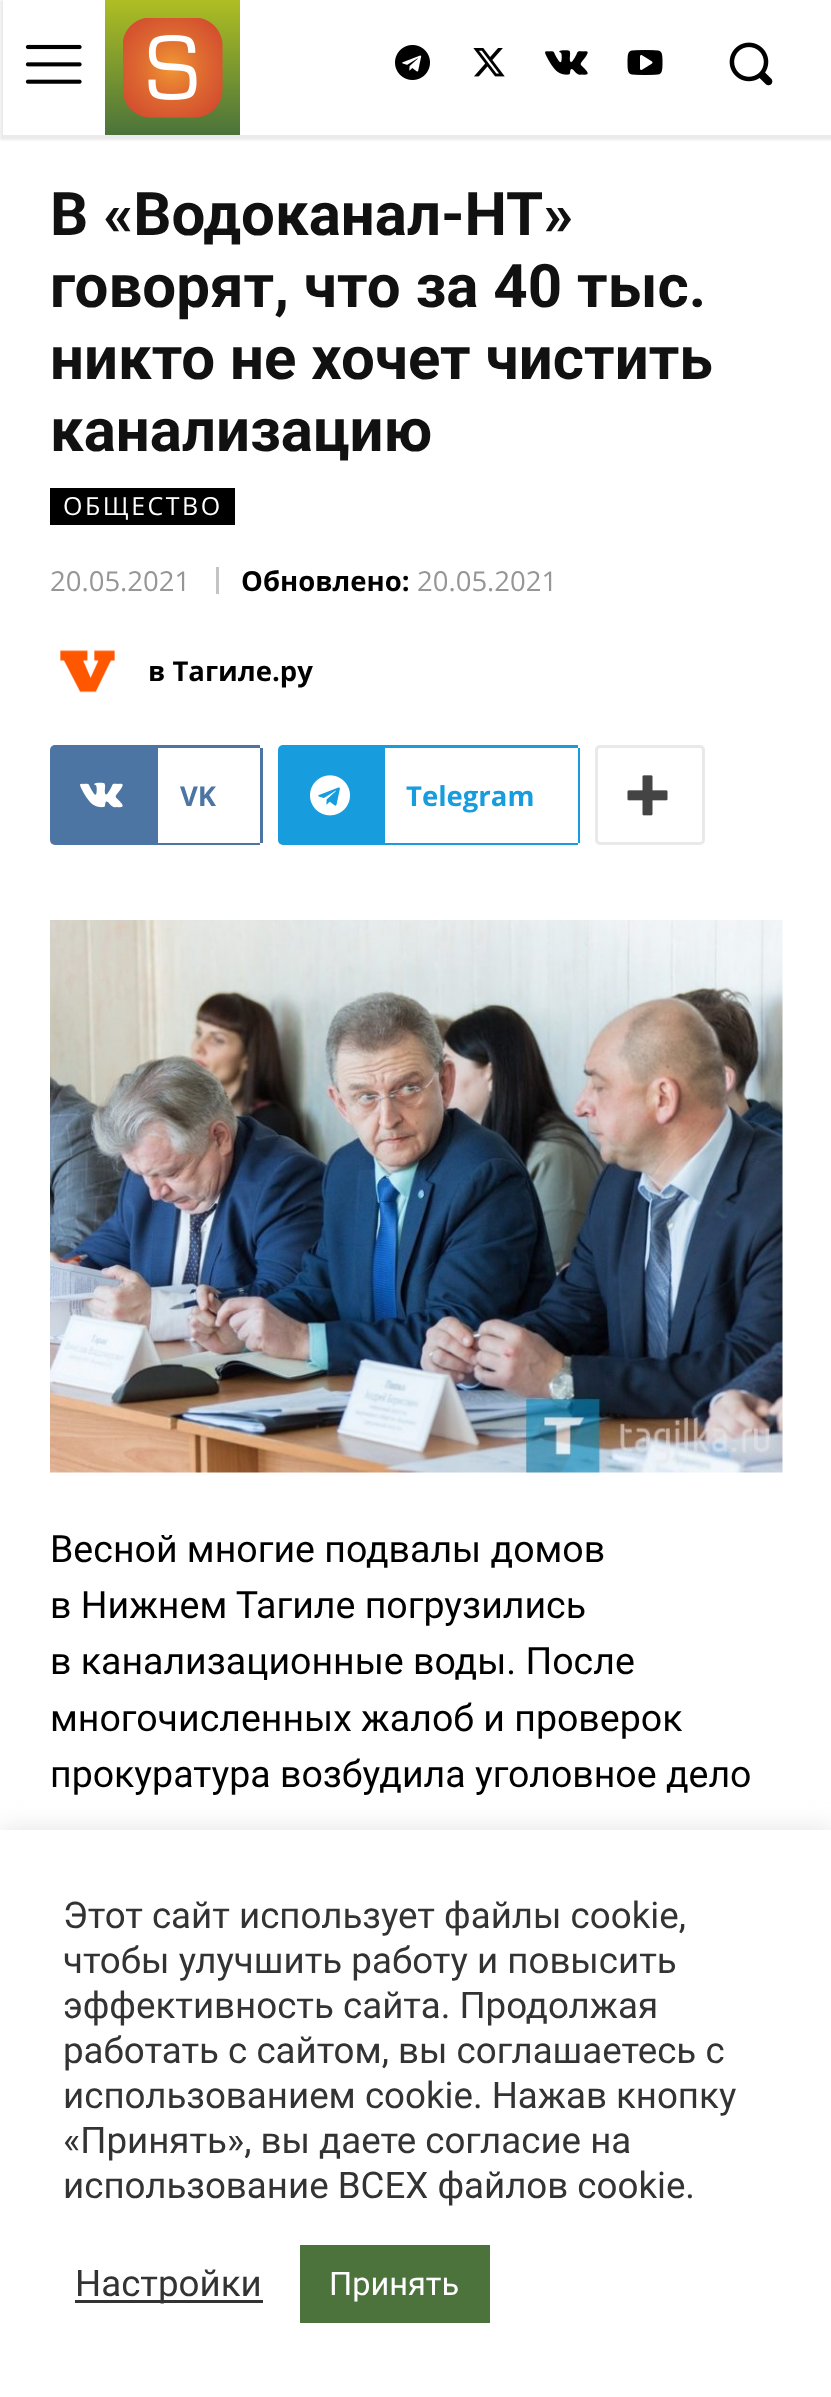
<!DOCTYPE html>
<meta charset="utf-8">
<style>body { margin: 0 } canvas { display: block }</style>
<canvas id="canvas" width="831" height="2397"></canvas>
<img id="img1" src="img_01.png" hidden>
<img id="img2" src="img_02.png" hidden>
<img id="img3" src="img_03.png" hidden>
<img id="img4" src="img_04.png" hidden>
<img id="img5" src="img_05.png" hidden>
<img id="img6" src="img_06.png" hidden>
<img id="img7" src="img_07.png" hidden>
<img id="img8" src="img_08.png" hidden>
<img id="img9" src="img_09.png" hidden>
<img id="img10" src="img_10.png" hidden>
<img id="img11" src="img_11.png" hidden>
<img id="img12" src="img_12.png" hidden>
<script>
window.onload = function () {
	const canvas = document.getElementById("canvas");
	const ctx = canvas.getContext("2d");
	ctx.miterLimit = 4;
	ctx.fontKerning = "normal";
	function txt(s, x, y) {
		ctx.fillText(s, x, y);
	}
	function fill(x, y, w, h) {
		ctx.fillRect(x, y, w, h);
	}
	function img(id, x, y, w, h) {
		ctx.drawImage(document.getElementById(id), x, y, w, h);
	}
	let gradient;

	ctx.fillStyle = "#FFFFFF";
	fill(0, 0, 831, 2397);
	img("img1", 25, 44, 57, 40);
	gradient = ctx.createLinearGradient(173, 0, 173, 135);
	gradient.addColorStop(0, "#AEBE23");
	gradient.addColorStop(1, "#4B733B");
	ctx.fillStyle = gradient;
	fill(105, 0, 135, 135);
	img("img2", 123, 18, 100, 100);
	img("img3", 395, 45, 35, 35);
	img("img4", 473, 48, 32, 29);
	img("img5", 545, 50, 43, 25);
	img("img6", 627, 50, 36, 25);
	img("img7", 729, 42, 44, 44);
	ctx.save();
	ctx.beginPath();
	ctx.moveTo(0, 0);
	ctx.lineTo(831, 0);
	ctx.lineTo(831, 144);
	ctx.lineTo(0, 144);
	ctx.closePath();
	ctx.moveTo(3, 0);
	ctx.lineTo(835, 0);
	ctx.lineTo(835, 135);
	ctx.lineTo(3, 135);
	ctx.closePath();
	ctx.clip("evenodd");
	ctx.fillStyle = "rgba(0, 0, 0, 0.08)";
	ctx.filter = "blur(1px)";
	ctx.beginPath();
	ctx.rect(0, 0, 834, 140);
	ctx.fill();
	ctx.filter = "none";
	ctx.restore();
	ctx.fillStyle = "#000000";
	fill(50, 488, 185, 37);
	ctx.fillStyle = "#C4C4C4";
	fill(216, 567, 3, 27);
	img("img8", 60, 650, 55, 43);
	ctx.fillStyle = "#4C75A3";
	fill(150, 745, 110, 3);
	fill(150, 843, 110, 2);
	ctx.beginPath();
	ctx.roundRect(50, 745, 108, 100, [5, 0, 0, 5]);
	ctx.fill();
	img("img9", 80, 782, 43, 26);
	fill(260, 748, 3, 95);
	ctx.fillStyle = "#179CDE";
	fill(378, 745, 200, 3);
	fill(378, 843, 200, 2);
	ctx.beginPath();
	ctx.roundRect(278, 745, 107, 100, [5, 0, 0, 5]);
	ctx.fill();
	img("img10", 310, 775, 40, 41);
	fill(578, 748, 2, 95);
	ctx.beginPath();
	ctx.roundRect(596.5, 746.5, 107, 97, 3.5);
	ctx.strokeStyle = "#E9E9E9";
	ctx.lineWidth = 3;
	ctx.stroke();
	img("img11", 627, 775, 41, 41);
	img("img12", 50, 920, 733, 553);
	ctx.fillStyle = "rgba(172, 171, 171, 0.3)";
	ctx.filter = "blur(12.5px)";
	ctx.beginPath();
	ctx.rect(0, 1828, 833, 567);
	ctx.fill();
	ctx.filter = "none";
	ctx.fillStyle = "#FFFFFF";
	fill(0, 1830, 831, 567);
	ctx.fillStyle = "#333333";
	fill(75, 2300, 188, 3);
	ctx.fillStyle = "#4B733B";
	fill(300, 2245, 190, 78);
	ctx.font = "bold 60px Roboto";
	ctx.fillStyle = "#111111";
	txt("В «Водоканал-НТ»", 50, 235);
	txt("говорят, что за 40 тыс.", 50, 307);
	txt("никто не хочет чистить", 50, 379);
	txt("канализацию", 50, 451);
	ctx.letterSpacing = "2.5px";
	ctx.font = "25px Open Sans";
	ctx.fillStyle = "#FFFFFF";
	txt("ОБЩЕСТВО", 63, 515);
	ctx.letterSpacing = "0px";
	ctx.font = "27.5px Open Sans";
	ctx.fillStyle = "#969696";
	txt("20.05.2021", 50, 591);
	ctx.font = "bold 27.5px Open Sans";
	ctx.fillStyle = "#000000";
	txt("Обновлено:", 241, 591);
	ctx.font = "27.5px Open Sans";
	ctx.fillStyle = "#969696";
	txt("20.05.2021", 417, 591);
	ctx.font = "bold 27.5px Open Sans";
	ctx.fillStyle = "#000000";
	txt("в Тагиле.ру", 148, 681);
	ctx.fillStyle = "#4C75A3";
	txt("VK", 180, 806);
	ctx.fillStyle = "#179CDE";
	txt("Telegram", 406, 806);
	ctx.font = "37.5px Roboto";
	ctx.fillStyle = "#000000";
	txt("Весной многие подвалы домов", 50, 1562);
	txt("в Нижнем Тагиле погрузились", 50, 1618);
	txt("в канализационные воды. После", 50, 1674);
	txt("многочисленных жалоб и проверок", 50, 1731);
	txt("прокуратура возбудила уголовное дело", 50, 1787);
	ctx.font = "36.7px Roboto";
	ctx.fillStyle = "#333333";
	txt("Этот сайт использует файлы cookie,", 63, 1928);
	txt("чтобы улучшить работу и повысить", 63, 1973);
	txt("эффективность сайта. Продолжая", 63, 2018);
	txt("работать с сайтом, вы соглашаетесь с", 63, 2063);
	txt("использованием cookie. Нажав кнопку", 63, 2108);
	txt("«Принять», вы даете согласие на", 63, 2153);
	txt("использование ВСЕХ файлов cookie.", 63, 2198);
	txt("Настройки", 75, 2296);
	ctx.font = "32.5px Roboto";
	ctx.fillStyle = "#FFFFFF";
	txt("Принять", 329, 2295);
};
</script>
